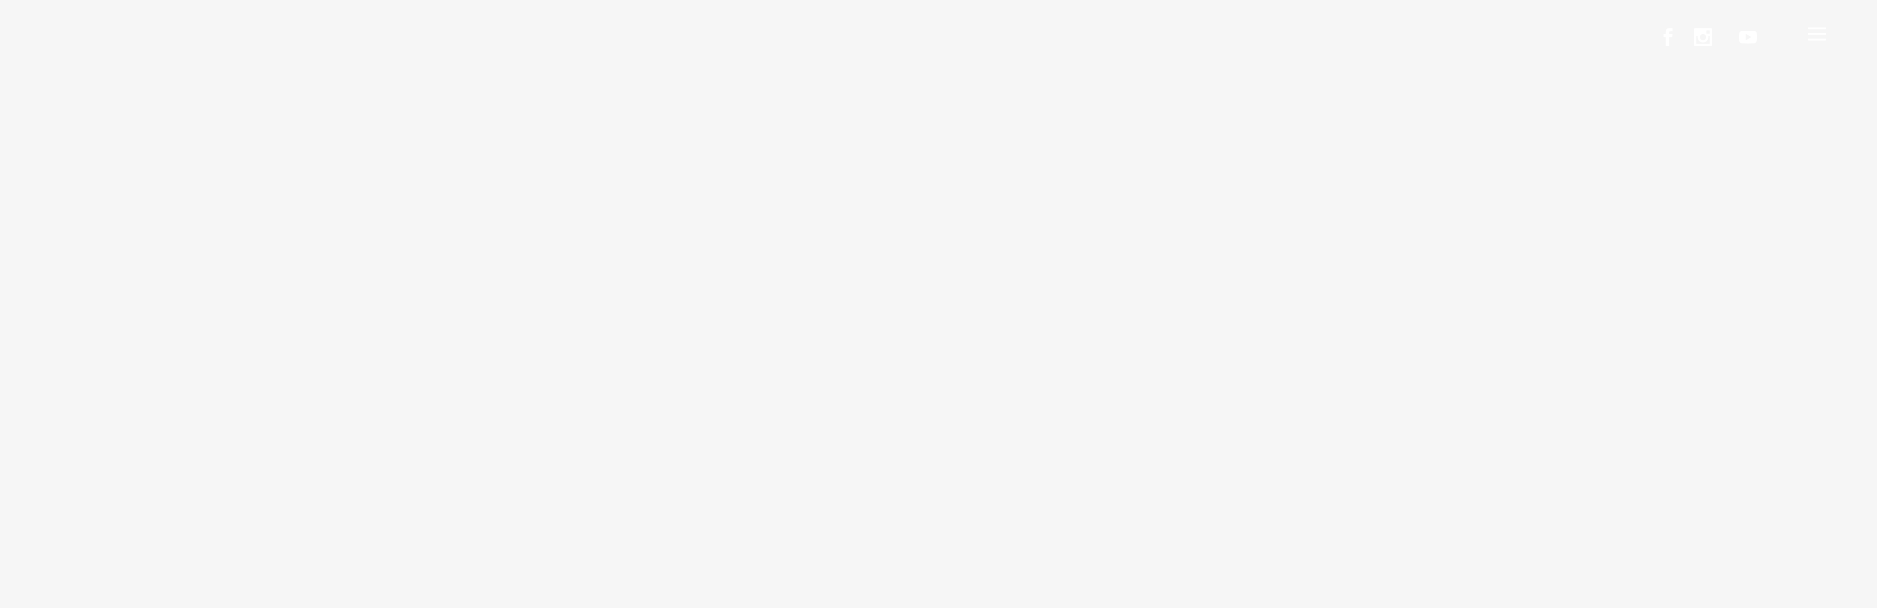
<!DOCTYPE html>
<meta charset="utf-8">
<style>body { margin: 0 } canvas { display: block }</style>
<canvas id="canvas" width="1877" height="608"></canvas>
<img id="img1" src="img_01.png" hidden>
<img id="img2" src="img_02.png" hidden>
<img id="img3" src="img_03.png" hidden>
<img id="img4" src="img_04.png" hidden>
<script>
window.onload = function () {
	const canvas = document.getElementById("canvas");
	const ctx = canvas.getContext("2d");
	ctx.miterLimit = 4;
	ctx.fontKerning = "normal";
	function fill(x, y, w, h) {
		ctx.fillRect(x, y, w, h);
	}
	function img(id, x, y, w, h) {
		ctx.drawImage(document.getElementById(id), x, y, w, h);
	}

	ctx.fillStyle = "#F6F6F6";
	fill(0, 0, 1877, 608);
	img("img1", 1663, 28, 10, 18);
	img("img2", 1694, 28, 18, 18);
	img("img3", 1739, 31, 18, 13);
	img("img4", 1808, 27, 18, 14);
};
</script>
